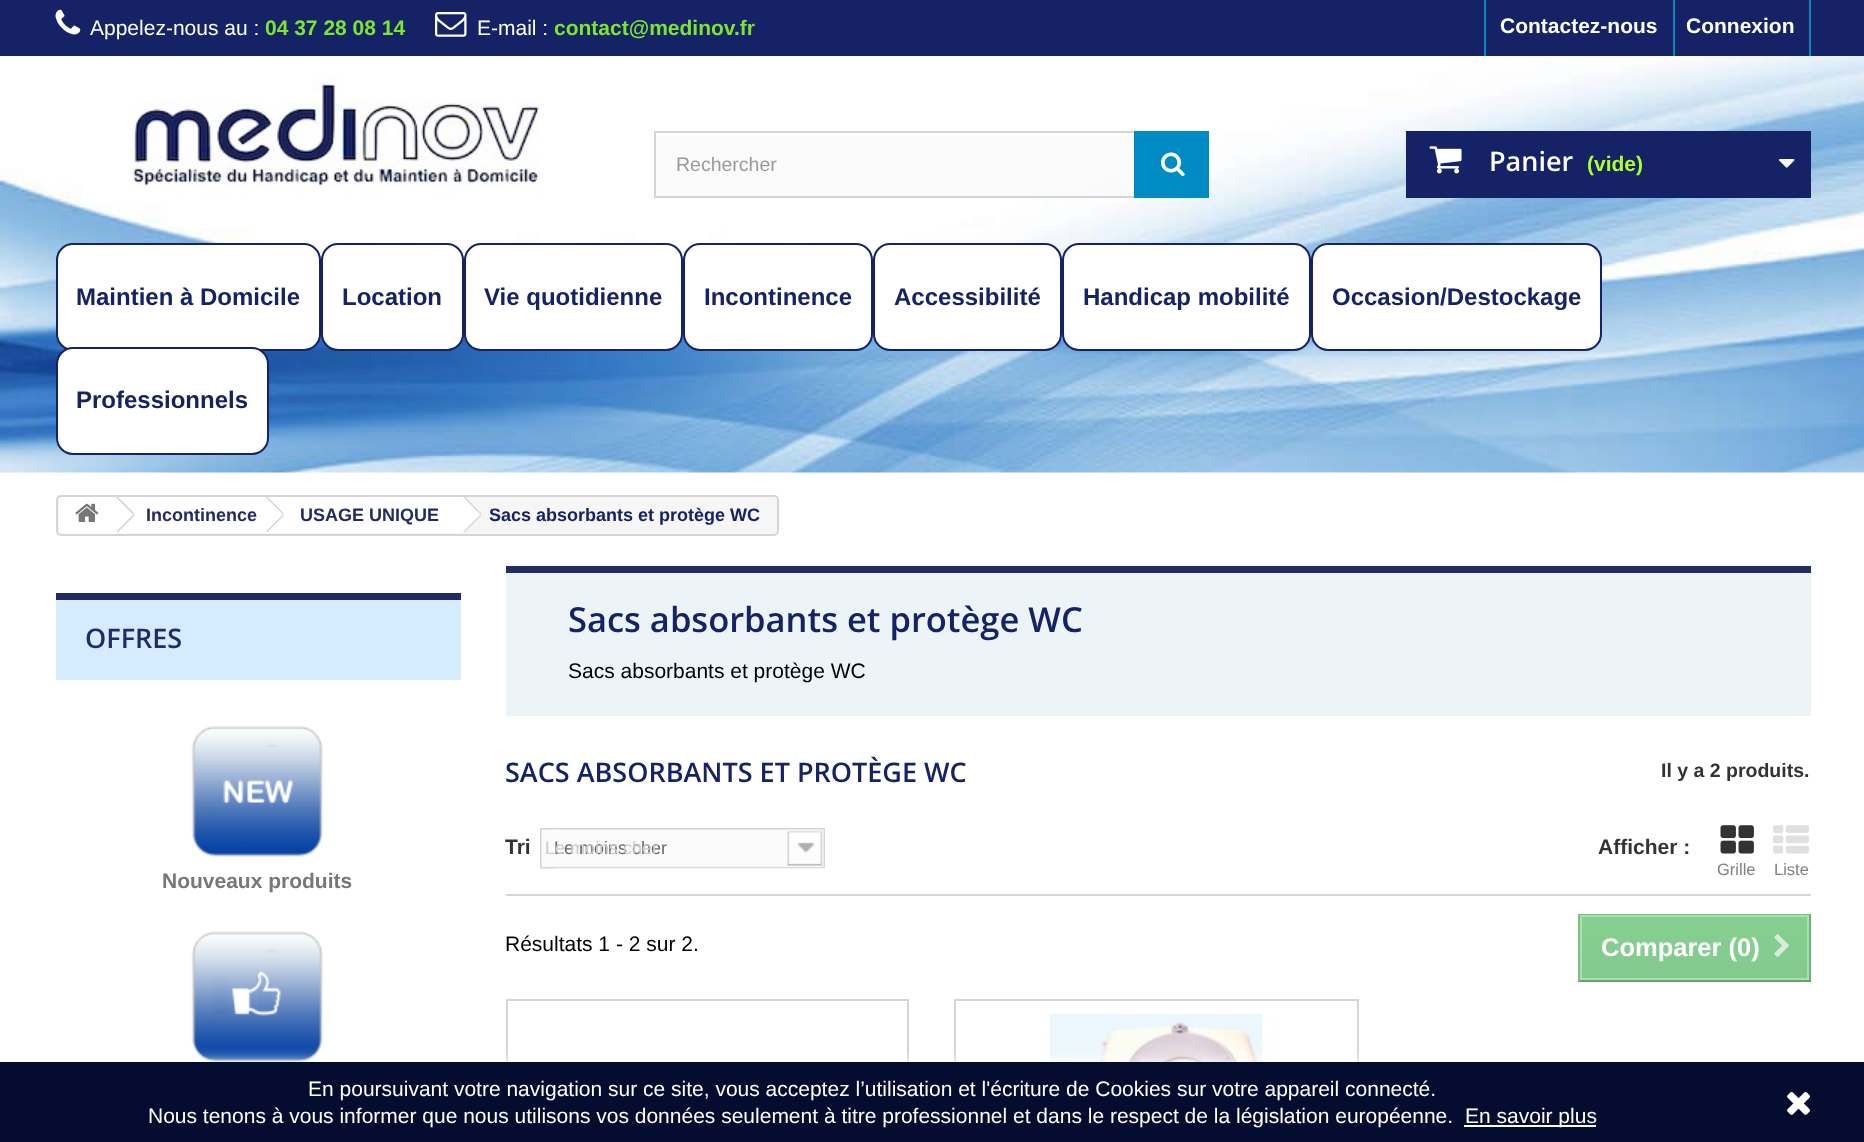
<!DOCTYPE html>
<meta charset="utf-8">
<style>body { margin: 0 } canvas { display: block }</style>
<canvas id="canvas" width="1864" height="1142"></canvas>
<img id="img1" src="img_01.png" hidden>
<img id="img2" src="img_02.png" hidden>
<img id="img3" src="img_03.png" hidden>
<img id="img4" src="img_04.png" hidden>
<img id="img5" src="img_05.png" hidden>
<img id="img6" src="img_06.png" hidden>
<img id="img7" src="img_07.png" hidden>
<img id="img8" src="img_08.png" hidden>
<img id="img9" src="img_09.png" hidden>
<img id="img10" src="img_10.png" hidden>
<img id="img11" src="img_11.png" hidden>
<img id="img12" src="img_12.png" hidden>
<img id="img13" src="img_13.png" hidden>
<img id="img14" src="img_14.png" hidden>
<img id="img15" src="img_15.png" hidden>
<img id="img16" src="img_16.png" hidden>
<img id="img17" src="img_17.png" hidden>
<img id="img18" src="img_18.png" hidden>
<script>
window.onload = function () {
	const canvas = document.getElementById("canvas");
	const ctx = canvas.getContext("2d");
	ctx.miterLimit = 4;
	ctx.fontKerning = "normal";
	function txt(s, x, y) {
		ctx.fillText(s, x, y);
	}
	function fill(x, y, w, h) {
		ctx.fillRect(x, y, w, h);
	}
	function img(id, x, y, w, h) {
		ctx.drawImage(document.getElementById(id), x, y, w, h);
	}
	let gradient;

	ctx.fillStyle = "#FFFFFF";
	fill(0, 0, 1864, 1142);
	img("img1", 0, 56, 1864, 417);
	ctx.fillStyle = "#152266";
	fill(0, 0, 1864, 56);
	img("img2", 55, 9, 26, 26);
	img("img3", 435, 12, 32, 25);
	ctx.fillStyle = "#008BC4";
	fill(1484, 0, 2, 56);
	fill(1809, 0, 2, 56);
	fill(1673, 0, 2, 56);
	img("img4", 108, 78, 432, 128);
	ctx.fillStyle = "rgba(248, 248, 248, 0.63)";
	fill(656, 133, 478, 63);
	ctx.strokeStyle = "#D6D4D4";
	ctx.lineWidth = 2;
	ctx.strokeRect(655, 132, 553, 65);
	ctx.fillStyle = "#008BC4";
	fill(1134, 131, 75, 67);
	img("img5", 1161, 152, 24, 25);
	ctx.fillStyle = "#152266";
	fill(1406, 131, 405, 67);
	img("img6", 1429, 146, 33, 28);
	img("img7", 1779, 159, 16, 9);
	ctx.fillStyle = "#FFFFFF";
	ctx.beginPath();
	ctx.roundRect(57, 244, 263, 106, 16);
	ctx.fill();
	ctx.strokeStyle = "#152266";
	ctx.stroke();
	ctx.beginPath();
	ctx.roundRect(322, 244, 141, 106, 16);
	ctx.fill();
	ctx.stroke();
	ctx.beginPath();
	ctx.roundRect(465, 244, 217, 106, 16);
	ctx.fill();
	ctx.stroke();
	ctx.beginPath();
	ctx.roundRect(684, 244, 188, 106, 16);
	ctx.fill();
	ctx.stroke();
	ctx.beginPath();
	ctx.roundRect(874, 244, 187, 106, 16);
	ctx.fill();
	ctx.stroke();
	ctx.beginPath();
	ctx.roundRect(1063, 244, 247, 106, 16);
	ctx.fill();
	ctx.stroke();
	ctx.beginPath();
	ctx.roundRect(1312, 244, 289, 106, 16);
	ctx.fill();
	ctx.stroke();
	ctx.beginPath();
	ctx.roundRect(57, 348, 211, 106, 16);
	ctx.fill();
	ctx.stroke();
	ctx.fillStyle = "#F6F6F6";
	ctx.beginPath();
	ctx.roundRect(57, 496, 721, 39, 4);
	ctx.fill();
	ctx.strokeStyle = "#D6D4D4";
	ctx.stroke();
	ctx.fillStyle = "#FFFFFF";
	ctx.beginPath();
	ctx.roundRect(59, 497, 57, 37, [5, 0, 0, 5]);
	ctx.fill();
	img("img8", 75, 503, 24, 19);
	fill(116, 497, 151, 36);
	ctx.fillStyle = "#D6D4D4";
	ctx.beginPath();
	ctx.moveTo(118, 497);
	ctx.lineTo(134.5, 513.5);
	ctx.lineTo(133, 514.5);
	ctx.lineTo(116, 497.5);
	ctx.lineTo(117, 497);
	ctx.closePath();
	ctx.fill();
	ctx.beginPath();
	ctx.moveTo(133, 514.5);
	ctx.lineTo(134.5, 515.5);
	ctx.lineTo(117.5, 532.5);
	ctx.lineTo(116.5, 531.5);
	ctx.closePath();
	ctx.fill();
	ctx.fillStyle = "#FFFFFF";
	ctx.beginPath();
	ctx.moveTo(283, 497.5);
	ctx.lineTo(282, 497);
	ctx.lineTo(279.5, 497);
	ctx.lineTo(278.5, 497.5);
	ctx.lineTo(264, 512.5);
	ctx.bezierCurveTo(262.5, 513.5, 262.5, 515.5, 264, 516.5);
	ctx.lineTo(278.5, 531.5);
	ctx.bezierCurveTo(280, 532.5, 282, 532.5, 283, 531.5);
	ctx.lineTo(298, 516.5);
	ctx.bezierCurveTo(299, 515.5, 299, 513.5, 298, 512.5);
	ctx.closePath();
	ctx.fill();
	fill(267, 497, 195, 36);
	ctx.fillStyle = "#D6D4D4";
	ctx.beginPath();
	ctx.moveTo(267, 496.5);
	ctx.lineTo(284, 513.5);
	ctx.lineTo(283, 514.5);
	ctx.lineTo(266, 497.5);
	ctx.closePath();
	ctx.fill();
	ctx.beginPath();
	ctx.moveTo(283, 514.5);
	ctx.lineTo(284, 515.5);
	ctx.lineTo(267, 532.5);
	ctx.lineTo(266, 531.5);
	ctx.closePath();
	ctx.fill();
	ctx.fillStyle = "#FFFFFF";
	ctx.beginPath();
	ctx.moveTo(465.5, 497.5);
	ctx.lineTo(464.5, 497);
	ctx.lineTo(462, 497);
	ctx.lineTo(461, 497.5);
	ctx.lineTo(446.5, 512.5);
	ctx.bezierCurveTo(445, 513.5, 445, 515.5, 446.5, 516.5);
	ctx.lineTo(461, 531.5);
	ctx.bezierCurveTo(462.5, 532.5, 464.5, 532.5, 465.5, 531.5);
	ctx.lineTo(480.5, 516.5);
	ctx.bezierCurveTo(481.5, 515.5, 481.5, 513.5, 480.5, 512.5);
	ctx.closePath();
	ctx.fill();
	ctx.fillStyle = "#D6D4D4";
	ctx.beginPath();
	ctx.moveTo(464.5, 496.5);
	ctx.lineTo(481.5, 513.5);
	ctx.lineTo(480.5, 514.5);
	ctx.lineTo(463.5, 497.5);
	ctx.closePath();
	ctx.fill();
	ctx.beginPath();
	ctx.moveTo(480.5, 514.5);
	ctx.lineTo(481.5, 515.5);
	ctx.lineTo(464.5, 532.5);
	ctx.lineTo(463.5, 531.5);
	ctx.closePath();
	ctx.fill();
	ctx.fillStyle = "#D5ECFE";
	fill(56, 600, 405, 80);
	ctx.fillStyle = "#222B66";
	fill(56, 593, 405, 7);
	img("img9", 191, 726, 132, 131);
	img("img10", 191, 931, 132, 131);
	fill(506, 566, 1305, 7);
	ctx.fillStyle = "#EDF4F7";
	fill(506, 573, 1305, 143);
	ctx.fillStyle = "#D6D4D4";
	fill(506, 894, 1305, 2);
	img("img11", 540, 828, 16, 41);
	img("img12", 555, 828, 270, 41);
	img("img13", 1720, 825, 34, 29);
	img("img14", 1773, 825, 36, 29);
	gradient = ctx.createLinearGradient(1694, 915, 1694, 980);
	gradient.addColorStop(0, "#85D090");
	gradient.addColorStop(1, "#84C98F");
	ctx.fillStyle = gradient;
	fill(1582, 917, 225, 61);
	ctx.fillStyle = "#7EBD89";
	fill(1578, 914, 233, 1);
	ctx.fillStyle = "#71AC7A";
	fill(1809, 914, 2, 67);
	ctx.fillStyle = "#6AA073";
	fill(1578, 980, 233, 2);
	ctx.fillStyle = "#7EBD89";
	fill(1578, 914, 2, 67);
	ctx.strokeStyle = "#A5E4A7";
	ctx.strokeRect(1581, 916, 227, 63);
	img("img15", 1774, 934, 15, 23);
	ctx.strokeStyle = "#D6D4D4";
	ctx.strokeRect(507, 1000, 401, 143);
	img("img16", 520, 1014, 374, 48);
	ctx.strokeRect(955, 1000, 403, 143);
	img("img17", 969, 1014, 375, 48);
	ctx.fillStyle = "#FFFFFF";
	ctx.filter = "blur(7.5px)";
	ctx.beginPath();
	ctx.rect(0, 1062, 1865, 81);
	ctx.fill();
	ctx.filter = "none";
	ctx.fillStyle = "#040C30";
	fill(0, 1062, 1864, 80);
	ctx.fillStyle = "#FFFFFF";
	fill(1464, 1125, 132, 2);
	img("img18", 1787, 1092, 23, 23);
	ctx.font = "21px Liberation Sans";
	txt("Appelez-nous au :", 90, 35);
	ctx.font = "bold 21px Liberation Sans";
	ctx.fillStyle = "#7DE530";
	txt("04 37 28 08 14", 265, 35);
	ctx.font = "21px Liberation Sans";
	ctx.fillStyle = "#FFFFFF";
	txt("E-mail :", 477, 35);
	ctx.font = "bold 21px Liberation Sans";
	ctx.fillStyle = "#7DE530";
	txt("contact@medinov.fr", 554, 35);
	ctx.fillStyle = "#FFFFFF";
	txt("Contactez-nous", 1500, 33);
	txt("Connexion", 1686, 33);
	ctx.font = "19.5px Liberation Sans";
	ctx.fillStyle = "#999999";
	txt("Rechercher", 676, 171);
	ctx.font = "600 27px Open Sans";
	ctx.fillStyle = "#FFFFFF";
	txt("Panier", 1489, 171);
	ctx.font = "bold 21px Liberation Sans";
	ctx.fillStyle = "#ADFF2E";
	txt("(vide)", 1587, 171);
	ctx.font = "bold 24px Liberation Sans";
	ctx.fillStyle = "#152266";
	txt("Maintien à Domicile", 76, 305);
	txt("Location", 342, 305);
	txt("Vie quotidienne", 484, 305);
	txt("Incontinence", 704, 305);
	txt("Accessibilité", 894, 305);
	txt("Handicap mobilité", 1083, 305);
	txt("Occasion/Destockage", 1332, 305);
	txt("Professionnels", 76, 408);
	ctx.font = "bold 18px Liberation Sans";
	ctx.fillStyle = "#222B66";
	txt("Incontinence", 146, 521);
	txt("USAGE UNIQUE", 300, 521);
	ctx.fillStyle = "#152266";
	txt("Sacs absorbants et protège WC", 489, 521);
	ctx.font = "600 27px Open Sans";
	ctx.fillStyle = "#222B66";
	txt("OFFRES", 85, 648);
	ctx.font = "bold 21px Liberation Sans";
	ctx.fillStyle = "#777777";
	txt("Nouveaux produits", 162, 888);
	ctx.font = "600 34.5px Open Sans";
	ctx.fillStyle = "#152266";
	txt("Sacs absorbants et protège WC", 568, 632);
	ctx.font = "21px Liberation Sans";
	ctx.fillStyle = "#000000";
	txt("Sacs absorbants et protège WC", 568, 678);
	ctx.font = "600 27px Open Sans";
	ctx.fillStyle = "#152266";
	txt("SACS ABSORBANTS ET PROTÈGE WC", 505, 782);
	ctx.font = "bold 19.5px Liberation Sans";
	ctx.fillStyle = "#333333";
	txt("Il y a 2 produits.", 1661, 777);
	ctx.font = "bold 21px Liberation Sans";
	txt("Tri", 505, 854);
	ctx.font = "18px Liberation Sans";
	ctx.fillStyle = "#666666";
	txt("Le moins cher", 554, 854);
	ctx.fillStyle = "#CBCBCB";
	txt("Le moins cher", 545, 854);
	ctx.font = "bold 21px Liberation Sans";
	ctx.fillStyle = "#333333";
	txt("Afficher :", 1598, 854);
	ctx.font = "16.5px Liberation Sans";
	ctx.fillStyle = "#808080";
	txt("Grille", 1717, 875);
	txt("Liste", 1774, 875);
	ctx.font = "21px Liberation Sans";
	ctx.fillStyle = "#000000";
	txt("Résultats 1 - 2 sur 2.", 505, 951);
	ctx.font = "bold 25.5px Liberation Sans";
	ctx.fillStyle = "#FFFFFF";
	txt("Comparer (0)", 1601, 956);
	ctx.font = "21px Liberation Sans";
	txt("En poursuivant votre navigation sur ce site, vous acceptez l’utilisation et l'écriture de Cookies sur votre appareil connecté.", 308, 1096);
	txt("Nous tenons à vous informer que nous utilisons vos données seulement à titre professionnel et dans le respect de la législation européenne.", 148, 1123);
	txt("En savoir plus", 1465, 1123);
};
</script>
